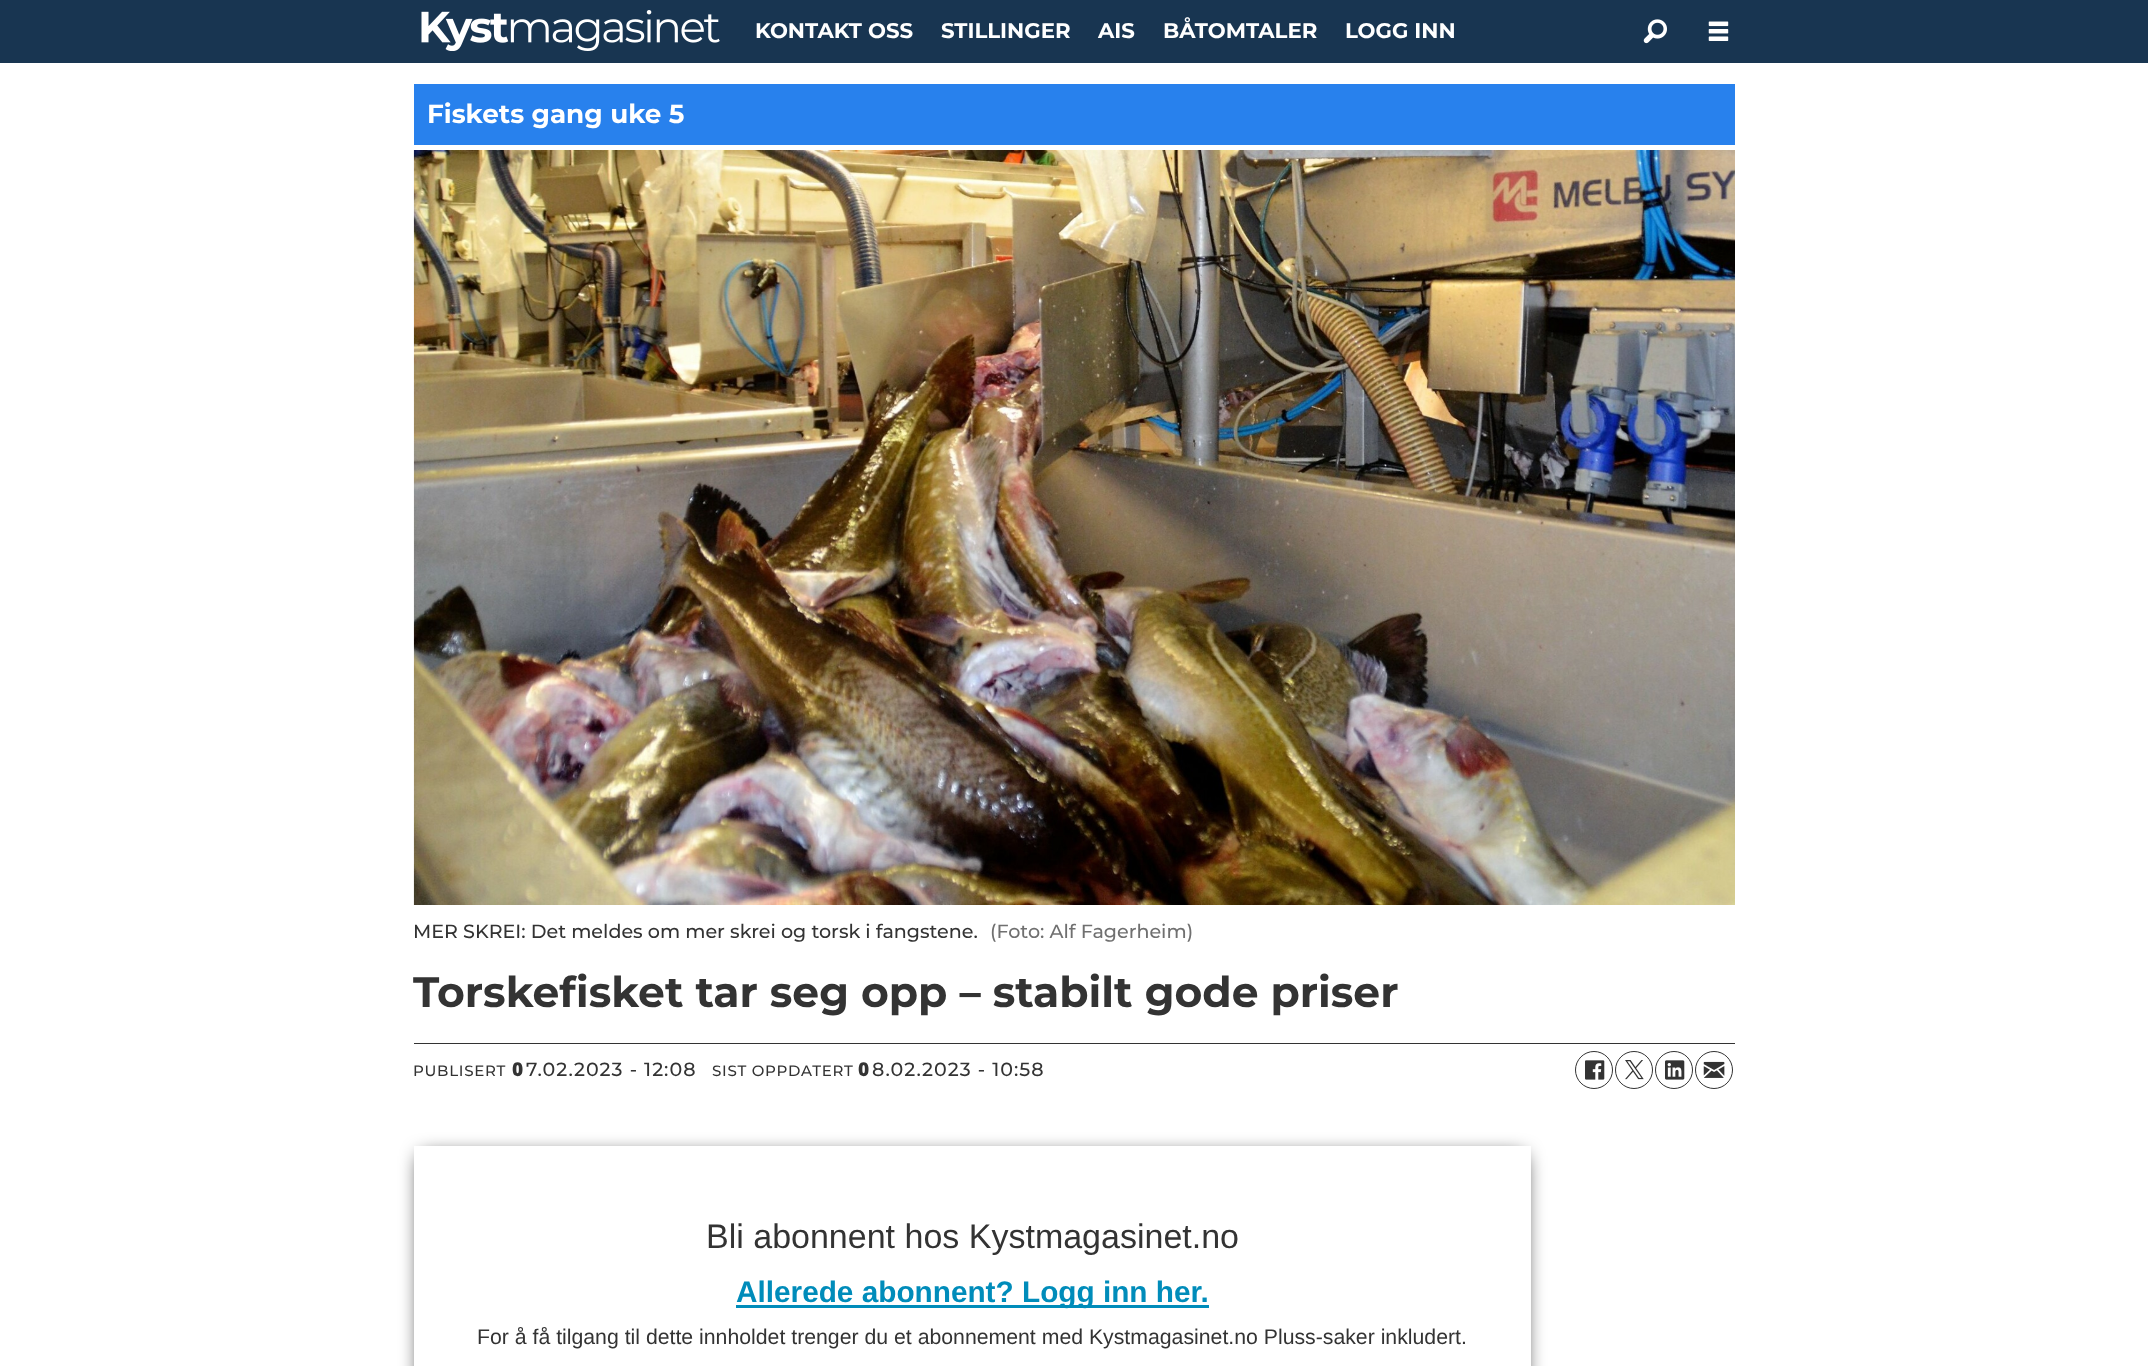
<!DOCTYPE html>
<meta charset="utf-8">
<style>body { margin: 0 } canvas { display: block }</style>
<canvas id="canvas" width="2148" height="1366"></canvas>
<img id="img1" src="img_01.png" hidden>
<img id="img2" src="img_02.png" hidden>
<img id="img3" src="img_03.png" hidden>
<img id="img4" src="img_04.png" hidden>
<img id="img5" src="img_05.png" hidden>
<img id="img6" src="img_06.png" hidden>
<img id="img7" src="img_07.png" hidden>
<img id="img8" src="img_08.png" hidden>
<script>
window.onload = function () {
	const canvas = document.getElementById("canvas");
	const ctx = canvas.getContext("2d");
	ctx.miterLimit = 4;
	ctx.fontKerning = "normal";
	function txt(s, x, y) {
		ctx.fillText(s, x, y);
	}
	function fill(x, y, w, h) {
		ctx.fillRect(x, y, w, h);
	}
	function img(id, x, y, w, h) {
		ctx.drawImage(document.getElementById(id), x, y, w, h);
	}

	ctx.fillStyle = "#FFFFFF";
	fill(0, 0, 2148, 1366);
	ctx.fillStyle = "#183551";
	fill(0, 0, 2148, 63);
	img("img1", 421, 10, 299, 41);
	img("img2", 1643, 19, 24, 25);
	img("img3", 1708, 21, 21, 20);
	ctx.fillStyle = "#2881ED";
	fill(414, 84, 1321, 61);
	img("img4", 413, 150, 1322, 755);
	ctx.fillStyle = "#333333";
	fill(414, 1043, 1321, 1);
	ctx.beginPath();
	ctx.arc(1594, 1070, 18.5, 0, Math.PI * 2);
	ctx.strokeStyle = "#333333";
	ctx.stroke();
	img("img5", 1585, 1060, 20, 20);
	ctx.beginPath();
	ctx.arc(1634, 1070, 18.5, 0, Math.PI * 2);
	ctx.stroke();
	img("img6", 1625, 1060, 19, 20);
	ctx.beginPath();
	ctx.arc(1674, 1070, 18.5, 0, Math.PI * 2);
	ctx.stroke();
	img("img7", 1665, 1060, 20, 20);
	ctx.beginPath();
	ctx.arc(1714, 1070, 18.5, 0, Math.PI * 2);
	ctx.stroke();
	img("img8", 1703, 1061, 22, 17);
	ctx.fillStyle = "#000000";
	ctx.filter = "blur(10px)";
	ctx.beginPath();
	ctx.rect(421, 1156, 1103, 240);
	ctx.fill();
	ctx.filter = "none";
	ctx.fillStyle = "#FFFFFF";
	fill(414, 1146, 1117, 220);
	ctx.fillStyle = "#008CBA";
	fill(736, 1305, 473, 3);
	ctx.font = "bold 21.25px Montserrat";
	ctx.fillStyle = "#FFFFFF";
	txt("KONTAKT OSS", 755, 38);
	txt("STILLINGER", 941, 38);
	txt("AIS", 1098, 38);
	txt("BÅTOMTALER", 1163, 38);
	txt("LOGG INN", 1345, 38);
	ctx.font = "bold 26.25px Montserrat";
	txt("Fiskets gang uke 5", 427, 123);
	ctx.font = "500 19.1px Montserrat";
	ctx.fillStyle = "#333333";
	txt("MER SKREI: Det meldes om mer skrei og torsk i fangstene.", 413, 938);
	ctx.fillStyle = "#707070";
	txt("(Foto: Alf Fagerheim)", 990, 938);
	ctx.font = "bold 42.5px Montserrat";
	ctx.fillStyle = "#333333";
	txt("Torskefisket tar seg opp – stabilt gode priser", 413, 1007);
	ctx.letterSpacing = "0.75px";
	ctx.font = "500 15px Montserrat";
	txt("PUBLISERT", 413, 1076);
	ctx.letterSpacing = "1px";
	ctx.font = "900 19.1px Noto Sans";
	txt("0", 512, 1076);
	ctx.font = "500 19.1px Montserrat";
	txt("7.02.2023 - 12:08", 526, 1076);
	ctx.letterSpacing = "0.75px";
	ctx.font = "500 15px Montserrat";
	txt("SIST OPPDATERT", 712, 1076);
	ctx.letterSpacing = "1px";
	ctx.font = "900 19.1px Noto Sans";
	txt("0", 858, 1076);
	ctx.font = "500 19.1px Montserrat";
	txt("8.02.2023 - 10:58", 872, 1076);
	ctx.letterSpacing = "0px";
	ctx.font = "34px Liberation Sans";
	txt("Bli abonnent hos Kystmagasinet.no", 706, 1248);
	ctx.font = "bold 29.75px Liberation Sans";
	ctx.fillStyle = "#008CBA";
	txt("Allerede abonnent? Logg inn her.", 736, 1302);
	ctx.font = "21.25px Liberation Sans";
	ctx.fillStyle = "#333333";
	txt("For å få tilgang til dette innholdet trenger du et abonnement med Kystmagasinet.no Pluss-saker inkludert.", 477, 1344);
};
</script>
